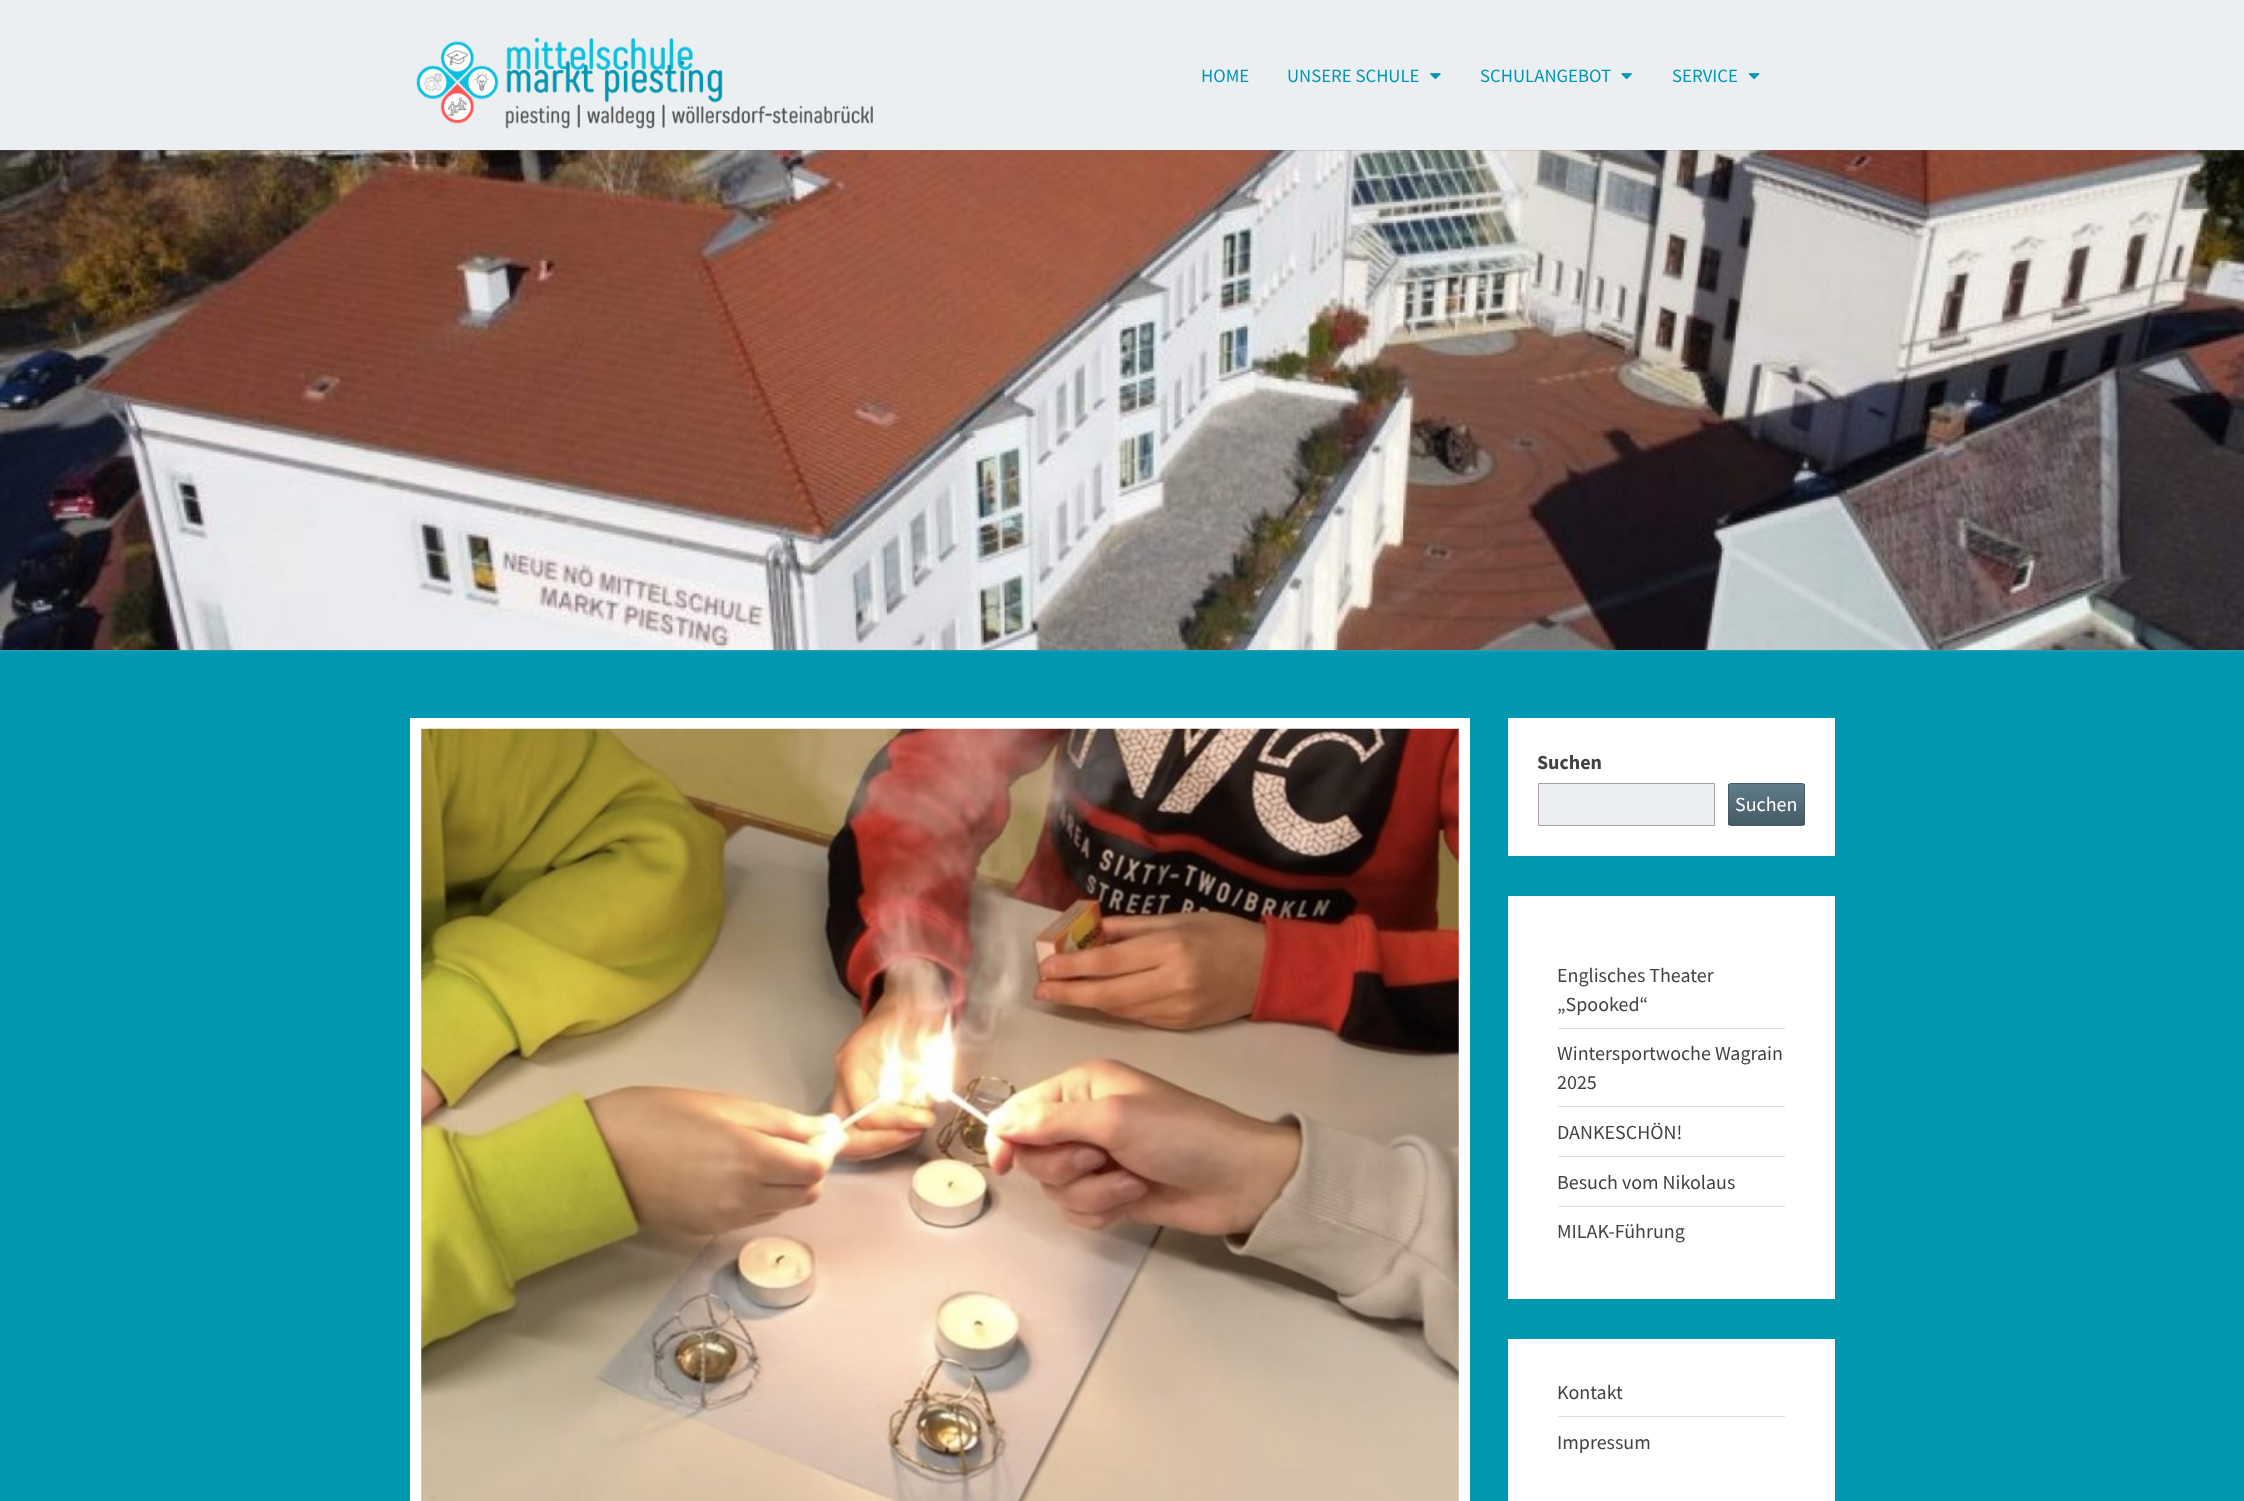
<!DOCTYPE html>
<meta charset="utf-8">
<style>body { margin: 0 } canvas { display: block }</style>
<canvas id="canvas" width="2244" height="1501"></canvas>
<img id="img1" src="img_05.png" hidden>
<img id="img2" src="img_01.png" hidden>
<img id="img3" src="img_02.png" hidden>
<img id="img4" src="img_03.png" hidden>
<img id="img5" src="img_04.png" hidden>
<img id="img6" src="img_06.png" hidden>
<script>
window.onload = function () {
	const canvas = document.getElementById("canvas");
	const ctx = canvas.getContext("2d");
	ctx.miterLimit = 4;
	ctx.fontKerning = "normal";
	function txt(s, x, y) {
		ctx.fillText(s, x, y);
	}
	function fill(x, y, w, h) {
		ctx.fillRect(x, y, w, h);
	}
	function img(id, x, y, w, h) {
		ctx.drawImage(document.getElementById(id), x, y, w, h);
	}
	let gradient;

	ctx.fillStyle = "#0097B2";
	fill(0, 0, 2244, 1501);
	ctx.fillStyle = "rgba(182, 182, 182, 0.3)";
	ctx.filter = "blur(1px)";
	ctx.beginPath();
	ctx.rect(-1, 149, 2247, 502);
	ctx.fill();
	ctx.filter = "none";
	img("img1", 0, 150, 2244, 500);
	ctx.fillStyle = "rgba(100, 100, 100, 0.2)";
	ctx.filter = "blur(0.5px)";
	ctx.beginPath();
	ctx.rect(0, 1, 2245, 150);
	ctx.fill();
	ctx.filter = "none";
	ctx.fillStyle = "#ECEFF1";
	fill(0, 0, 2244, 150);
	img("img2", 416, 37, 457, 92);
	img("img3", 1430, 73, 11, 7);
	img("img4", 1621, 73, 11, 7);
	img("img5", 1748, 73, 12, 7);
	ctx.fillStyle = "#FFFFFF";
	fill(410, 718, 1060, 783);
	img("img6", 421, 728, 1038, 773);
	fill(1508, 718, 327, 138);
	ctx.fillStyle = "#ECEFF1";
	ctx.beginPath();
	ctx.rect(1538.5, 783.5, 176, 42);
	ctx.fill();
	ctx.strokeStyle = "#AAA1A8";
	ctx.stroke();
	ctx.save();
	ctx.beginPath();
	ctx.roundRect(1728, 783, 77, 43, 2.5);
	ctx.clip();
	gradient = ctx.createLinearGradient(1766, 784, 1766, 825);
	gradient.addColorStop(0, "#607D8B");
	gradient.addColorStop(1, "#455A64");
	ctx.fillStyle = gradient;
	fill(1728, 784, 77, 41);
	ctx.restore();
	ctx.beginPath();
	ctx.roundRect(1728.5, 783.5, 76, 42, 2);
	ctx.strokeStyle = "#455A64";
	ctx.stroke();
	ctx.fillStyle = "#FFFFFF";
	fill(1508, 896, 327, 403);
	ctx.fillStyle = "#DDDDDD";
	fill(1558, 1028, 227, 1);
	fill(1558, 1106, 227, 1);
	fill(1558, 1156, 227, 1);
	fill(1558, 1206, 227, 1);
	ctx.fillStyle = "#FFFFFF";
	fill(1508, 1339, 327, 162);
	ctx.fillStyle = "#DDDDDD";
	fill(1558, 1416, 227, 1);
	ctx.font = "18.75px Source Sans Pro";
	ctx.fillStyle = "#0097B2";
	txt("HOME", 1201, 82);
	txt("UNSERE SCHULE", 1287, 82);
	txt("SCHULANGEBOT", 1480, 82);
	txt("SERVICE", 1672, 82);
	ctx.font = "bold 20px Source Sans Pro";
	ctx.fillStyle = "#424242";
	txt("Suchen", 1537, 769);
	ctx.font = "20px Source Sans Pro";
	ctx.fillStyle = "#FFFFFF";
	txt("Suchen", 1735, 811);
	ctx.fillStyle = "#424242";
	txt("Englisches Theater", 1557, 982);
	txt("„Spooked“", 1557, 1011);
	txt("Wintersportwoche Wagrain", 1557, 1060);
	txt("2025", 1557, 1089);
	txt("DANKESCHÖN!", 1557, 1139);
	txt("Besuch vom Nikolaus", 1557, 1189);
	txt("MILAK-Führung", 1557, 1238);
	txt("Kontakt", 1557, 1399);
	txt("Impressum", 1557, 1449);
};
</script>
